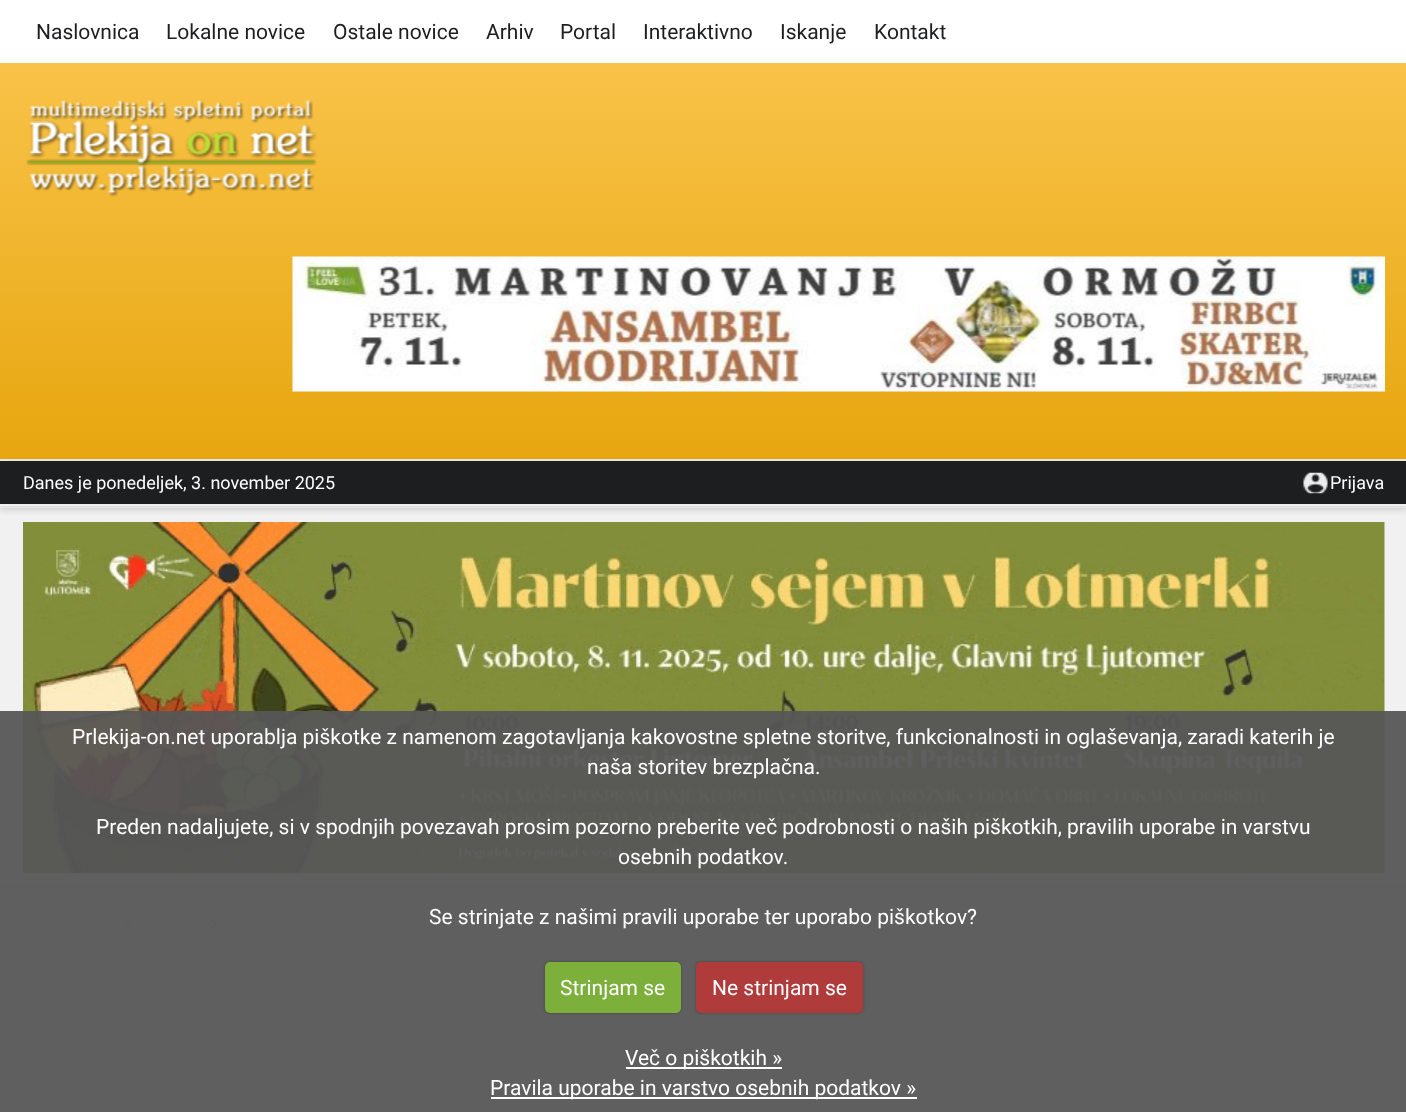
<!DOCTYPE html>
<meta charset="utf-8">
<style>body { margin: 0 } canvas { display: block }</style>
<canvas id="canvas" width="1406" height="1112"></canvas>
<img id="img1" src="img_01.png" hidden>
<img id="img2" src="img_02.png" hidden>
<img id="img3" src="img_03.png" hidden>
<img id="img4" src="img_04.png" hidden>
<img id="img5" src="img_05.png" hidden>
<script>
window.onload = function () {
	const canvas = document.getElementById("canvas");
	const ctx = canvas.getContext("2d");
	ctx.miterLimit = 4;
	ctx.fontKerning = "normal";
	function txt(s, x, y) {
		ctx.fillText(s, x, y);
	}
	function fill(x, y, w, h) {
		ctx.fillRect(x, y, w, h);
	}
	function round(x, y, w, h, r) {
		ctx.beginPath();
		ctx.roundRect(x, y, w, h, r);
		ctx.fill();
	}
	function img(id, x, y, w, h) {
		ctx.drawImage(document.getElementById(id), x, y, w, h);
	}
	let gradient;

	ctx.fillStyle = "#F1F1F1";
	fill(0, 0, 1406, 1112);
	ctx.fillStyle = "rgba(0, 0, 0, 0.08)";
	ctx.filter = "blur(3px)";
	ctx.beginPath();
	ctx.rect(0, 3, 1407, 507);
	ctx.fill();
	ctx.filter = "none";
	ctx.fillStyle = "#FFFFFF";
	fill(0, 0, 1406, 63);
	ctx.fillStyle = "#EFEFEF";
	fill(0, 506, 1406, 2);
	gradient = ctx.createLinearGradient(704, 63, 704, 459);
	gradient.addColorStop(0, "#F9C349");
	gradient.addColorStop(1, "#E7A60F");
	ctx.fillStyle = gradient;
	fill(0, 63, 1406, 396);
	ctx.fillStyle = "#E7E7E7";
	fill(0, 459, 1406, 2);
	img("img1", 26, 100, 291, 97);
	img("img2", 292, 256, 1093, 136);
	ctx.fillStyle = "rgba(0, 0, 0, 0.08)";
	ctx.filter = "blur(3px)";
	ctx.beginPath();
	ctx.rect(0, 464, 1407, 45);
	ctx.fill();
	ctx.filter = "none";
	ctx.fillStyle = "#1D1E20";
	fill(0, 461, 1406, 43);
	ctx.fillStyle = "#EFEFEF";
	fill(0, 504, 1406, 2);
	img("img3", 1303, 472, 25, 22);
	img("img4", 23, 522, 1362, 352);
	ctx.fillStyle = "rgba(0, 0, 0, 0.1)";
	ctx.filter = "blur(1.5px)";
	ctx.beginPath();
	ctx.rect(-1, 887, 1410, 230);
	ctx.fill();
	ctx.filter = "none";
	ctx.fillStyle = "#FCFCFC";
	fill(0, 888, 1406, 224);
	img("img5", 124, 918, 6, 10);
	img("img5", 211, 918, 6, 10);
	ctx.fillStyle = "rgba(86, 86, 86, 0.95)";
	fill(0, 711, 1406, 401);
	ctx.fillStyle = "rgba(0, 0, 0, 0.25)";
	ctx.filter = "blur(1.5px)";
	ctx.beginPath();
	ctx.roundRect(545, 962, 136, 51, 5);
	ctx.fill();
	ctx.filter = "none";
	ctx.fillStyle = "#7DAF3B";
	round(545, 962, 136, 51, 5);
	ctx.fillStyle = "rgba(0, 0, 0, 0.25)";
	ctx.filter = "blur(1.5px)";
	ctx.beginPath();
	ctx.roundRect(696, 962, 167, 51, 5);
	ctx.fill();
	ctx.filter = "none";
	ctx.fillStyle = "#AF3B3B";
	round(696, 962, 167, 51, 5);
	ctx.fillStyle = "#FFFFFF";
	fill(626, 1067, 156, 2);
	fill(491, 1097, 426, 2);
	ctx.font = "21px Roboto";
	ctx.fillStyle = "#1D1E20";
	txt("Naslovnica", 36, 39);
	txt("Lokalne novice", 166, 39);
	txt("Ostale novice", 333, 39);
	txt("Arhiv", 486, 39);
	txt("Portal", 560, 39);
	txt("Interaktivno", 643, 39);
	txt("Iskanje", 780, 39);
	txt("Kontakt", 874, 39);
	ctx.font = "18px Roboto";
	ctx.fillStyle = "#FFFFFF";
	txt("Danes je ponedeljek, 3. november 2025", 23, 489);
	txt("Prijava", 1330, 489);
	ctx.font = "21px Roboto";
	txt("Prlekija-on.net uporablja piškotke z namenom zagotavljanja kakovostne spletne storitve, funkcionalnosti in oglaševanja, zaradi katerih je", 72, 744);
	txt("naša storitev brezplačna.", 587, 774);
	txt("Preden nadaljujete, si v spodnjih povezavah prosim pozorno preberite več podrobnosti o naših piškotkih, pravilih uporabe in varstvu", 96, 834);
	txt("osebnih podatkov.", 618, 864);
	txt("Se strinjate z našimi pravili uporabe ter uporabo piškotkov?", 429, 924);
	txt("Strinjam se", 560, 995);
	txt("Ne strinjam se", 712, 995);
	txt("Več o piškotkih »", 625, 1065);
	txt("Pravila uporabe in varstvo osebnih podatkov »", 490, 1095);
};
</script>
